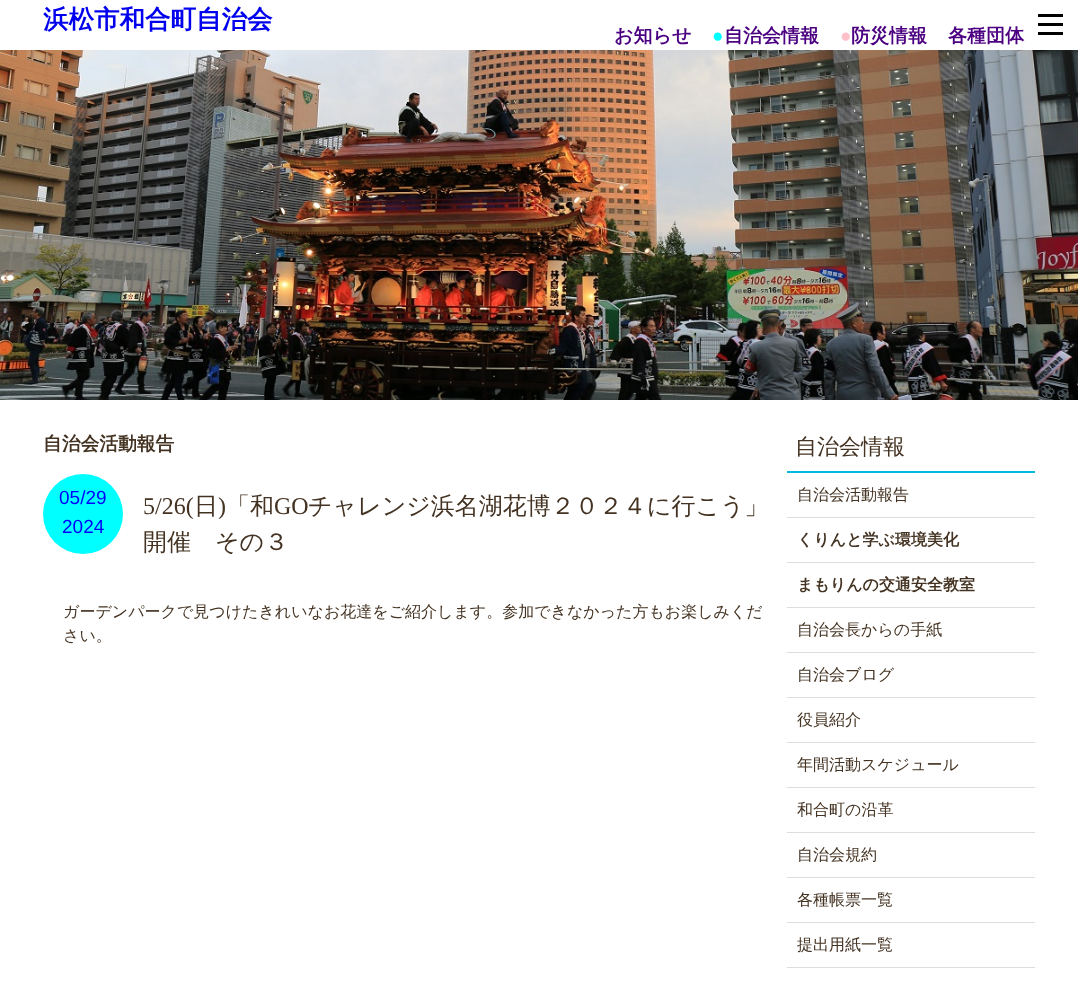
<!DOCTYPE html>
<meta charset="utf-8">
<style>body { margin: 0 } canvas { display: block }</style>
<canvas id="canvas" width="1078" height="994"></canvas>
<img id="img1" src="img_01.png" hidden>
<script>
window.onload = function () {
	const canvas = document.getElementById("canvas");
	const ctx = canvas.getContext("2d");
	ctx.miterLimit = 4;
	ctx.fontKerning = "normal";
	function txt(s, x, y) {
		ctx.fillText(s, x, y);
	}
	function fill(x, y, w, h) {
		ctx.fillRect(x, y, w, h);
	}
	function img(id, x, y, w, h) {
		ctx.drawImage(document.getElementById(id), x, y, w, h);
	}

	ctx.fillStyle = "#FFFFFF";
	fill(0, 0, 1078, 994);
	img("img1", 0, 50, 1078, 350);
	ctx.fillStyle = "#000000";
	fill(1038, 14, 25, 3);
	fill(1038, 23, 25, 3);
	fill(1038, 32, 25, 3);
	ctx.fillStyle = "#00FFFF";
	ctx.beginPath();
	ctx.arc(83, 514, 40, 0, Math.PI * 2);
	ctx.fill();
	ctx.fillStyle = "#00BBDD";
	fill(787, 471, 248, 2);
	ctx.fillStyle = "#DDDDDD";
	fill(787, 517, 248, 1);
	fill(787, 562, 248, 1);
	fill(787, 607, 248, 1);
	fill(787, 652, 248, 1);
	fill(787, 697, 248, 1);
	fill(787, 742, 248, 1);
	fill(787, 787, 248, 1);
	fill(787, 832, 248, 1);
	fill(787, 877, 248, 1);
	fill(787, 922, 248, 1);
	fill(787, 967, 248, 1);
	ctx.font = "bold 25.5px WenQuanYi Zen Hei";
	ctx.fillStyle = "#0000EE";
	txt("浜松市和合町自治会", 43, 28);
	ctx.font = "bold 19px WenQuanYi Zen Hei";
	ctx.fillStyle = "#4B0082";
	txt("お知らせ", 614, 42);
	ctx.font = "19px Liberation Sans";
	ctx.fillStyle = "#00FFFF";
	txt("●", 712, 42);
	ctx.font = "bold 19px WenQuanYi Zen Hei";
	ctx.fillStyle = "#4B0082";
	txt("自治会情報", 724, 42);
	ctx.font = "19px Liberation Sans";
	ctx.fillStyle = "#FFC0CB";
	txt("●", 840, 42);
	ctx.font = "bold 19px WenQuanYi Zen Hei";
	ctx.fillStyle = "#4B0082";
	txt("防災情報", 851, 42);
	txt("各種団体", 948, 42);
	ctx.font = "bold 18.75px WenQuanYi Zen Hei";
	ctx.fillStyle = "#443322";
	txt("自治会活動報告", 43, 450);
	ctx.font = "19px Liberation Sans";
	ctx.fillStyle = "#0000FF";
	txt("05/29", 59, 504);
	txt("2024", 62, 533);
	ctx.font = "24px Liberation Serif";
	ctx.fillStyle = "#443322";
	txt("5/26(", 143, 514);
	ctx.font = "500 24px WenQuanYi Zen Hei";
	txt("日", 194, 514);
	ctx.font = "24px Liberation Serif";
	txt(")", 218, 514);
	ctx.font = "500 24px WenQuanYi Zen Hei";
	txt("「和", 226, 514);
	ctx.font = "24px Liberation Serif";
	txt("GO", 274, 514);
	ctx.font = "500 24px WenQuanYi Zen Hei";
	txt("チャレンジ浜名湖花博２０２４に行こう」", 308, 514);
	txt("開催　その３", 143, 550);
	ctx.font = "500 16px WenQuanYi Zen Hei";
	txt("ガーデンパークで見つけたきれいなお花達をご紹介します。参加できなかった方もお楽しみくだ", 63, 617);
	txt("さい。", 63, 641);
	ctx.font = "500 22px WenQuanYi Zen Hei";
	txt("自治会情報", 795, 454);
	ctx.font = "500 16px WenQuanYi Zen Hei";
	txt("自治会活動報告", 797, 500);
	ctx.font = "bold 16px WenQuanYi Zen Hei";
	txt("くりんと学ぶ環境美化", 797, 545);
	txt("まもりんの交通安全教室", 797, 590);
	ctx.font = "500 16px WenQuanYi Zen Hei";
	txt("自治会長からの手紙", 797, 635);
	txt("自治会ブログ", 797, 680);
	txt("役員紹介", 797, 725);
	txt("年間活動スケジュール", 797, 770);
	txt("和合町の沿革", 797, 815);
	txt("自治会規約", 797, 860);
	txt("各種帳票一覧", 797, 905);
	txt("提出用紙一覧", 797, 950);
};
</script>
